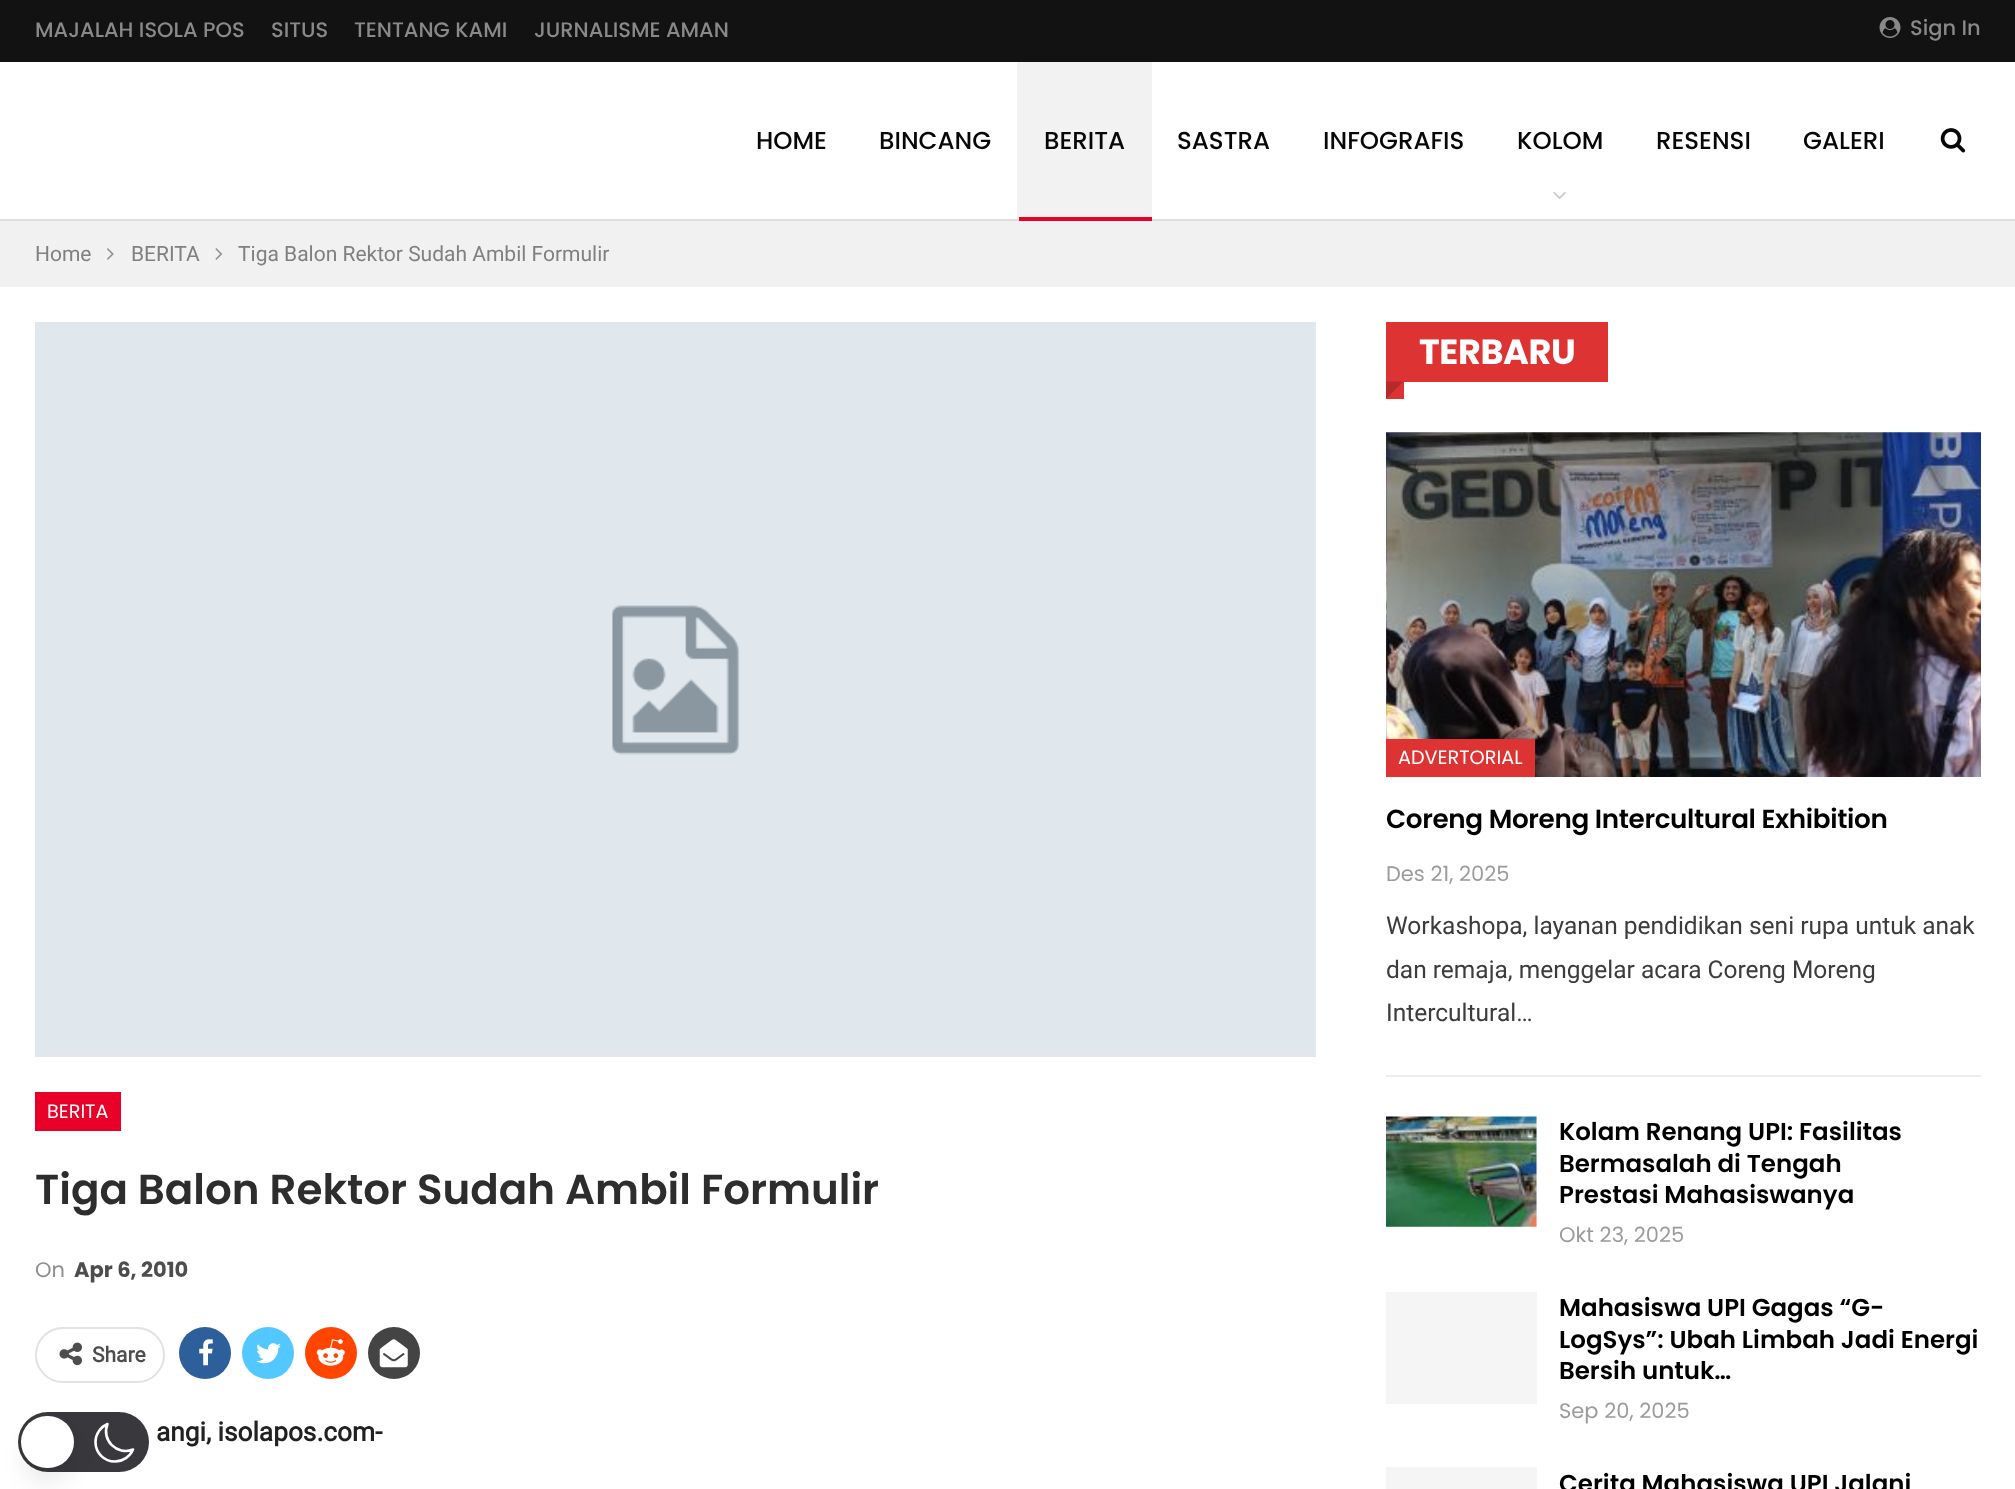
<!DOCTYPE html>
<meta charset="utf-8">
<style>body { margin: 0 } canvas { display: block }</style>
<canvas id="canvas" width="2015" height="1489"></canvas>
<img id="img1" src="img_01.png" hidden>
<img id="img2" src="img_02.png" hidden>
<img id="img3" src="img_03.png" hidden>
<img id="img4" src="img_04.png" hidden>
<img id="img5" src="img_05.png" hidden>
<img id="img6" src="img_06.png" hidden>
<img id="img7" src="img_07.png" hidden>
<img id="img8" src="img_08.png" hidden>
<img id="img9" src="img_09.png" hidden>
<img id="img10" src="img_10.png" hidden>
<img id="img11" src="img_11.png" hidden>
<img id="img12" src="img_12.png" hidden>
<img id="img13" src="img_13.png" hidden>
<script>
window.onload = function () {
	const canvas = document.getElementById("canvas");
	const ctx = canvas.getContext("2d");
	ctx.miterLimit = 4;
	ctx.fontKerning = "normal";
	function txt(s, x, y) {
		ctx.fillText(s, x, y);
	}
	function fill(x, y, w, h) {
		ctx.fillRect(x, y, w, h);
	}
	function round(x, y, w, h, r) {
		ctx.beginPath();
		ctx.roundRect(x, y, w, h, r);
		ctx.fill();
	}
	function img(id, x, y, w, h) {
		ctx.drawImage(document.getElementById(id), x, y, w, h);
	}

	ctx.fillStyle = "#FFFFFF";
	fill(0, 0, 2015, 1489);
	ctx.fillStyle = "#DEDEDE";
	fill(0, 219, 2015, 2);
	ctx.fillStyle = "#121212";
	fill(0, 0, 2015, 62);
	img("img1", 1879, 17, 22, 21);
	ctx.fillStyle = "#F2F2F2";
	fill(1017, 62, 135, 157);
	ctx.fillStyle = "#E80028";
	fill(1019, 217, 133, 4);
	img("img2", 1553, 192, 13, 7);
	img("img3", 1940, 128, 26, 25);
	ctx.fillStyle = "#F1F1F1";
	fill(0, 221, 2015, 66);
	img("img4", 107, 248, 7, 12);
	img("img5", 215, 248, 8, 12);
	img("img6", 35, 322, 1281, 735);
	ctx.fillStyle = "#E80028";
	fill(35, 1092, 86, 39);
	ctx.beginPath();
	ctx.roundRect(36, 1328, 128, 54, 27);
	ctx.strokeStyle = "#E2E2E2";
	ctx.lineWidth = 2;
	ctx.stroke();
	img("img7", 59, 1342, 23, 24);
	ctx.fillStyle = "#2D5F9A";
	ctx.beginPath();
	ctx.arc(205, 1353, 26, 0, Math.PI * 2);
	ctx.fill();
	img("img8", 199, 1339, 14, 27);
	ctx.fillStyle = "#53C7FF";
	ctx.beginPath();
	ctx.arc(268, 1353, 26, 0, Math.PI * 2);
	ctx.fill();
	img("img9", 256, 1343, 25, 21);
	ctx.fillStyle = "#FF4500";
	ctx.beginPath();
	ctx.arc(331, 1353, 26, 0, Math.PI * 2);
	ctx.fill();
	img("img10", 316, 1339, 29, 27);
	ctx.fillStyle = "#444444";
	ctx.beginPath();
	ctx.arc(394, 1353, 26, 0, Math.PI * 2);
	ctx.fill();
	img("img11", 379, 1339, 29, 29);
	ctx.fillStyle = "#DD3333";
	fill(1386, 322, 222, 60);
	fill(1386, 382, 18, 17);
	ctx.fillStyle = "#B52A2A";
	ctx.beginPath();
	ctx.moveTo(1386, 381.5);
	ctx.lineTo(1403.5, 381.5);
	ctx.lineTo(1386, 399);
	ctx.closePath();
	ctx.fill();
	img("img12", 1386, 432, 595, 345);
	ctx.fillStyle = "#DD3333";
	fill(1386, 739, 149, 38);
	ctx.fillStyle = "#EDEDED";
	fill(1386, 1075, 595, 2);
	ctx.fillStyle = "#F5F5F5";
	fill(1386, 1117, 151, 110);
	img("img13", 1386, 1116, 151, 111);
	fill(1386, 1292, 151, 112);
	fill(1386, 1467, 151, 22);
	ctx.fillStyle = "#39393D";
	round(18, 1412, 131, 60, 30);
	ctx.beginPath();
	ctx.moveTo(133, 1449.5);
	ctx.bezierCurveTo(117, 1456, 101, 1440, 107.5, 1424);
	ctx.bezierCurveTo(100.5, 1427, 95.5, 1434, 95.5, 1442);
	ctx.bezierCurveTo(95.5, 1453, 104, 1461.5, 115, 1461.5);
	ctx.bezierCurveTo(123, 1461.5, 130, 1456.5, 133, 1449.5);
	ctx.closePath();
	ctx.strokeStyle = "#FFFFFF";
	ctx.lineWidth = 2.6;
	ctx.lineCap = "round";
	ctx.lineJoin = "round";
	ctx.stroke();
	ctx.fillStyle = "rgba(0, 0, 0, 0.1)";
	ctx.filter = "blur(13px)";
	ctx.beginPath();
	ctx.roundRect(26, 1439, 42, 42, 21);
	ctx.fill();
	ctx.filter = "none";
	ctx.fillStyle = "#FFFFFF";
	round(21, 1416, 53, 52, 26);
	ctx.font = "500 21px Poppins";
	ctx.fillStyle = "#898989";
	txt("MAJALAH ISOLA POS", 35, 37);
	txt("SITUS", 271, 37);
	txt("TENTANG KAMI", 354, 37);
	txt("JURNALISME AMAN", 534, 37);
	txt("Sign In", 1910, 35);
	ctx.font = "500 24.5px Poppins";
	ctx.fillStyle = "#070707";
	txt("HOME", 756, 149);
	txt("BINCANG", 879, 149);
	txt("BERITA", 1044, 149);
	txt("SASTRA", 1177, 149);
	txt("INFOGRAFIS", 1323, 149);
	txt("KOLOM", 1517, 149);
	txt("RESENSI", 1656, 149);
	txt("GALERI", 1803, 149);
	ctx.font = "21px Roboto";
	ctx.fillStyle = "#808080";
	txt("Home", 35, 261);
	txt("BERITA", 131, 261);
	txt("Tiga Balon Rektor Sudah Ambil Formulir", 238, 261);
	ctx.font = "19.25px Poppins";
	ctx.fillStyle = "#FFFFFF";
	txt("BERITA", 47, 1118);
	ctx.font = "600 42px Poppins";
	ctx.fillStyle = "#2D2D2D";
	txt("Tiga Balon Rektor Sudah Ambil Formulir", 35, 1204);
	ctx.font = "21px Poppins";
	ctx.fillStyle = "#8F8F8F";
	txt("On", 35, 1277);
	ctx.font = "bold 21px Poppins";
	ctx.fillStyle = "#4D4D4D";
	txt("Apr 6, 2010", 74, 1277);
	ctx.font = "bold 21px Roboto";
	txt("Share", 92, 1362);
	ctx.font = "bold 26.25px Roboto";
	ctx.fillStyle = "#212121";
	txt("angi, isolapos.com-", 156, 1441);
	ctx.letterSpacing = "-0.35px";
	ctx.font = "bold 35px Poppins";
	ctx.fillStyle = "#FFFFFF";
	txt("TERBARU", 1419, 364);
	ctx.letterSpacing = "0px";
	ctx.font = "19.25px Poppins";
	txt("ADVERTORIAL", 1398, 764);
	ctx.letterSpacing = "-0.35px";
	ctx.font = "600 26.25px Poppins";
	ctx.fillStyle = "#000000";
	txt("Coreng Moreng Intercultural Exhibition", 1386, 828);
	ctx.letterSpacing = "0px";
	ctx.font = "21px Poppins";
	ctx.fillStyle = "#9B9B9B";
	txt("Des 21, 2025", 1386, 881);
	ctx.font = "24.5px Roboto";
	ctx.fillStyle = "#3C3C3C";
	txt("Workashopa, layanan pendidikan seni rupa untuk anak", 1386, 934);
	txt("dan remaja, menggelar acara Coreng Moreng", 1386, 978);
	txt("Intercultural…", 1386, 1021);
	ctx.font = "600 24.5px Poppins";
	ctx.fillStyle = "#000000";
	txt("Kolam Renang UPI: Fasilitas", 1559, 1140);
	txt("Bermasalah di Tengah", 1559, 1172);
	txt("Prestasi Mahasiswanya", 1559, 1203);
	ctx.font = "21px Poppins";
	ctx.fillStyle = "#9B9B9B";
	txt("Okt 23, 2025", 1559, 1242);
	ctx.font = "600 24.5px Poppins";
	ctx.fillStyle = "#000000";
	txt("Mahasiswa UPI Gagas “G-", 1559, 1316);
	txt("LogSys”: Ubah Limbah Jadi Energi", 1559, 1348);
	txt("Bersih untuk…", 1559, 1379);
	ctx.font = "21px Poppins";
	ctx.fillStyle = "#9B9B9B";
	txt("Sep 20, 2025", 1559, 1418);
	ctx.font = "600 24.5px Poppins";
	ctx.fillStyle = "#000000";
	txt("Cerita Mahasiswa UPI Jalani", 1559, 1492);
};
</script>
